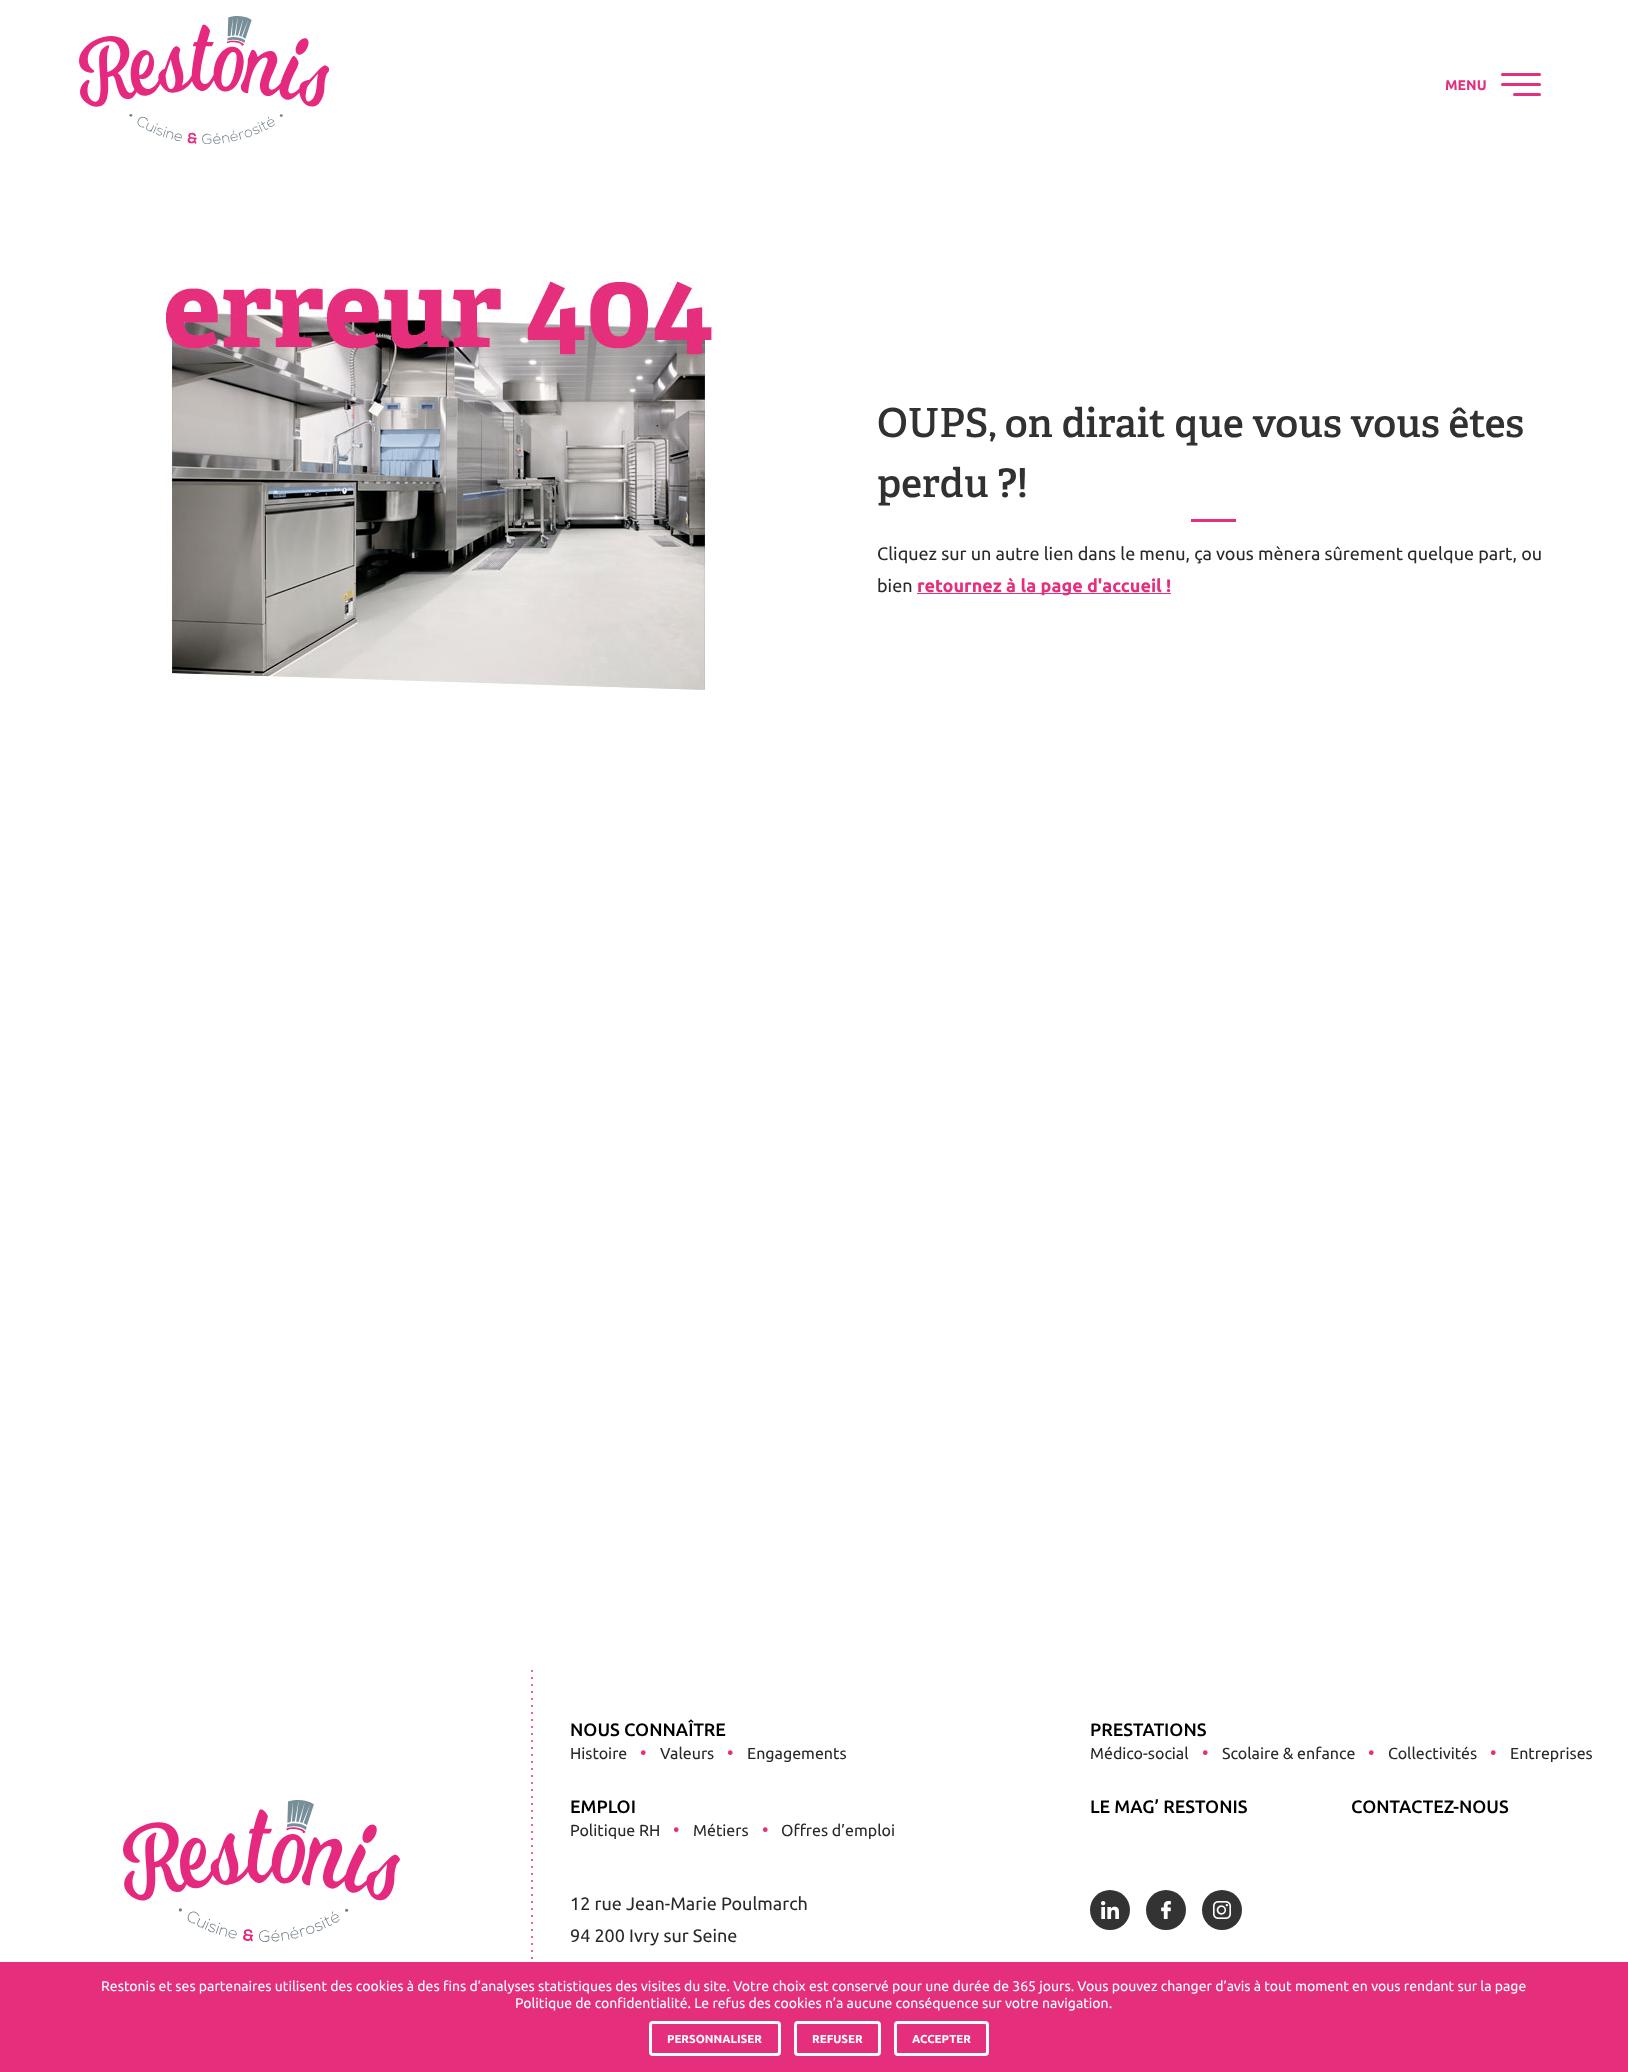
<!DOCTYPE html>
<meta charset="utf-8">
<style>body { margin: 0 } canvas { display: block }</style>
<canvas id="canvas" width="1628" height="2072"></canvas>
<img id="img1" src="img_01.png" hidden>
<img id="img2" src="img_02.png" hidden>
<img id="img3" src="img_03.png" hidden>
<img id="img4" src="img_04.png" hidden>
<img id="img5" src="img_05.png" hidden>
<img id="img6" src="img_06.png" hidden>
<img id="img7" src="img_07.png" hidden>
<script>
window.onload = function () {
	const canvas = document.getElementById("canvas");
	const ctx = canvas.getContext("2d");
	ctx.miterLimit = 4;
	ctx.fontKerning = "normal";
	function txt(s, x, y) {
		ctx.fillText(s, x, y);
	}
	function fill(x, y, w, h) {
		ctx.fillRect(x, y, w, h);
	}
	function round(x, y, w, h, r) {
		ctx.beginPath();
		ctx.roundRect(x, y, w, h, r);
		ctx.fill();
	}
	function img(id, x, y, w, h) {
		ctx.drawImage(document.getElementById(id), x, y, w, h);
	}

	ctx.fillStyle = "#FFFFFF";
	fill(0, 0, 1628, 2072);
	img("img1", 79, 16, 250, 128);
	ctx.fillStyle = "#E52F7C";
	round(1501, 73, 40, 3, 1.5);
	round(1501, 83, 40, 3, 1.5);
	round(1513, 93, 28, 3, 1.5);
	img("img2", 166, 281, 546, 409);
	fill(1191, 519, 45, 3);
	fill(917, 593, 254, 1);
	img("img3", 531, 1670, 2, 289);
	img("img4", 123, 1800, 277, 142);
	ctx.fillStyle = "#333333";
	ctx.beginPath();
	ctx.arc(1110, 1910, 20, 0, Math.PI * 2);
	ctx.fill();
	img("img5", 1101, 1901, 18, 18);
	ctx.beginPath();
	ctx.arc(1166, 1910, 20, 0, Math.PI * 2);
	ctx.fill();
	img("img6", 1161, 1901, 10, 18);
	ctx.beginPath();
	ctx.arc(1222, 1910, 20, 0, Math.PI * 2);
	ctx.fill();
	img("img7", 1213, 1901, 18, 18);
	ctx.fillStyle = "#E52F7C";
	fill(0, 1962, 1628, 110);
	ctx.beginPath();
	ctx.roundRect(650.5, 2022.5, 129, 32, 2.5);
	ctx.strokeStyle = "#FFFFFF";
	ctx.lineWidth = 3;
	ctx.stroke();
	ctx.beginPath();
	ctx.roundRect(795.5, 2022.5, 84, 32, 2.5);
	ctx.stroke();
	ctx.beginPath();
	ctx.roundRect(895.5, 2022.5, 92, 32, 2.5);
	ctx.stroke();
	ctx.font = "bold 14px Ubuntu";
	txt("MENU", 1445, 90);
	ctx.font = "600 40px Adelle";
	ctx.fillStyle = "#313131";
	txt("OUPS, on dirait que vous vous êtes", 877, 437);
	txt("perdu ?!", 877, 497);
	ctx.font = "18px Ubuntu";
	ctx.fillStyle = "#292929";
	txt("Cliquez sur un autre lien dans le menu, ça vous mènera sûrement quelque part, ou", 877, 560);
	txt("bien", 877, 592);
	ctx.font = "bold 18px Ubuntu";
	ctx.fillStyle = "#E52F7C";
	txt("retournez à la page d'accueil !", 917, 592);
	ctx.font = "500 18px Ubuntu";
	ctx.fillStyle = "#000000";
	txt("NOUS CONNAÎTRE", 570, 1736);
	ctx.font = "16px Ubuntu";
	ctx.fillStyle = "#292929";
	txt("Histoire", 570, 1759);
	ctx.font = "18px Ubuntu";
	ctx.fillStyle = "#E52F7C";
	txt("•", 640, 1759);
	ctx.font = "16px Ubuntu";
	ctx.fillStyle = "#292929";
	txt("Valeurs", 660, 1759);
	ctx.font = "18px Ubuntu";
	ctx.fillStyle = "#E52F7C";
	txt("•", 727, 1759);
	ctx.font = "16px Ubuntu";
	ctx.fillStyle = "#292929";
	txt("Engagements", 747, 1759);
	ctx.font = "500 18px Ubuntu";
	ctx.fillStyle = "#000000";
	txt("PRESTATIONS", 1090, 1736);
	ctx.font = "16px Ubuntu";
	ctx.fillStyle = "#292929";
	txt("Médico-social", 1090, 1759);
	ctx.font = "18px Ubuntu";
	ctx.fillStyle = "#E52F7C";
	txt("•", 1202, 1759);
	ctx.font = "16px Ubuntu";
	ctx.fillStyle = "#292929";
	txt("Scolaire & enfance", 1222, 1759);
	ctx.font = "18px Ubuntu";
	ctx.fillStyle = "#E52F7C";
	txt("•", 1368, 1759);
	ctx.font = "16px Ubuntu";
	ctx.fillStyle = "#292929";
	txt("Collectivités", 1388, 1759);
	ctx.font = "18px Ubuntu";
	ctx.fillStyle = "#E52F7C";
	txt("•", 1490, 1759);
	ctx.font = "16px Ubuntu";
	ctx.fillStyle = "#292929";
	txt("Entreprises", 1510, 1759);
	ctx.font = "500 18px Ubuntu";
	ctx.fillStyle = "#000000";
	txt("EMPLOI", 570, 1813);
	ctx.font = "16px Ubuntu";
	ctx.fillStyle = "#292929";
	txt("Politique RH", 570, 1836);
	ctx.font = "18px Ubuntu";
	ctx.fillStyle = "#E52F7C";
	txt("•", 673, 1836);
	ctx.font = "16px Ubuntu";
	ctx.fillStyle = "#292929";
	txt("Métiers", 693, 1836);
	ctx.font = "18px Ubuntu";
	ctx.fillStyle = "#E52F7C";
	txt("•", 762, 1836);
	ctx.font = "16px Ubuntu";
	ctx.fillStyle = "#292929";
	txt("Offres d’emploi", 781, 1836);
	ctx.font = "500 18px Ubuntu";
	ctx.fillStyle = "#000000";
	txt("LE MAG’ RESTONIS", 1090, 1813);
	txt("CONTACTEZ-NOUS", 1351, 1813);
	ctx.font = "18px Ubuntu";
	ctx.fillStyle = "#292929";
	txt("12 rue Jean-Marie Poulmarch", 570, 1910);
	txt("94 200 Ivry sur Seine", 570, 1942);
	ctx.font = "14px Ubuntu";
	ctx.fillStyle = "#FFFFFF";
	txt("Restonis et ses partenaires utilisent des cookies à des fins d’analyses statistiques des visites du site. Votre choix est conservé pour une durée de 365 jours. Vous pouvez changer d’avis à tout moment en vous rendant sur la page", 101, 1991);
	txt("Politique de confidentialité. Le refus des cookies n’a aucune conséquence sur votre navigation.", 515, 2008);
	ctx.font = "bold 11.5px Ubuntu";
	txt("PERSONNALISER", 667, 2043);
	txt("REFUSER", 812, 2043);
	txt("ACCEPTER", 912, 2043);
};
</script>
